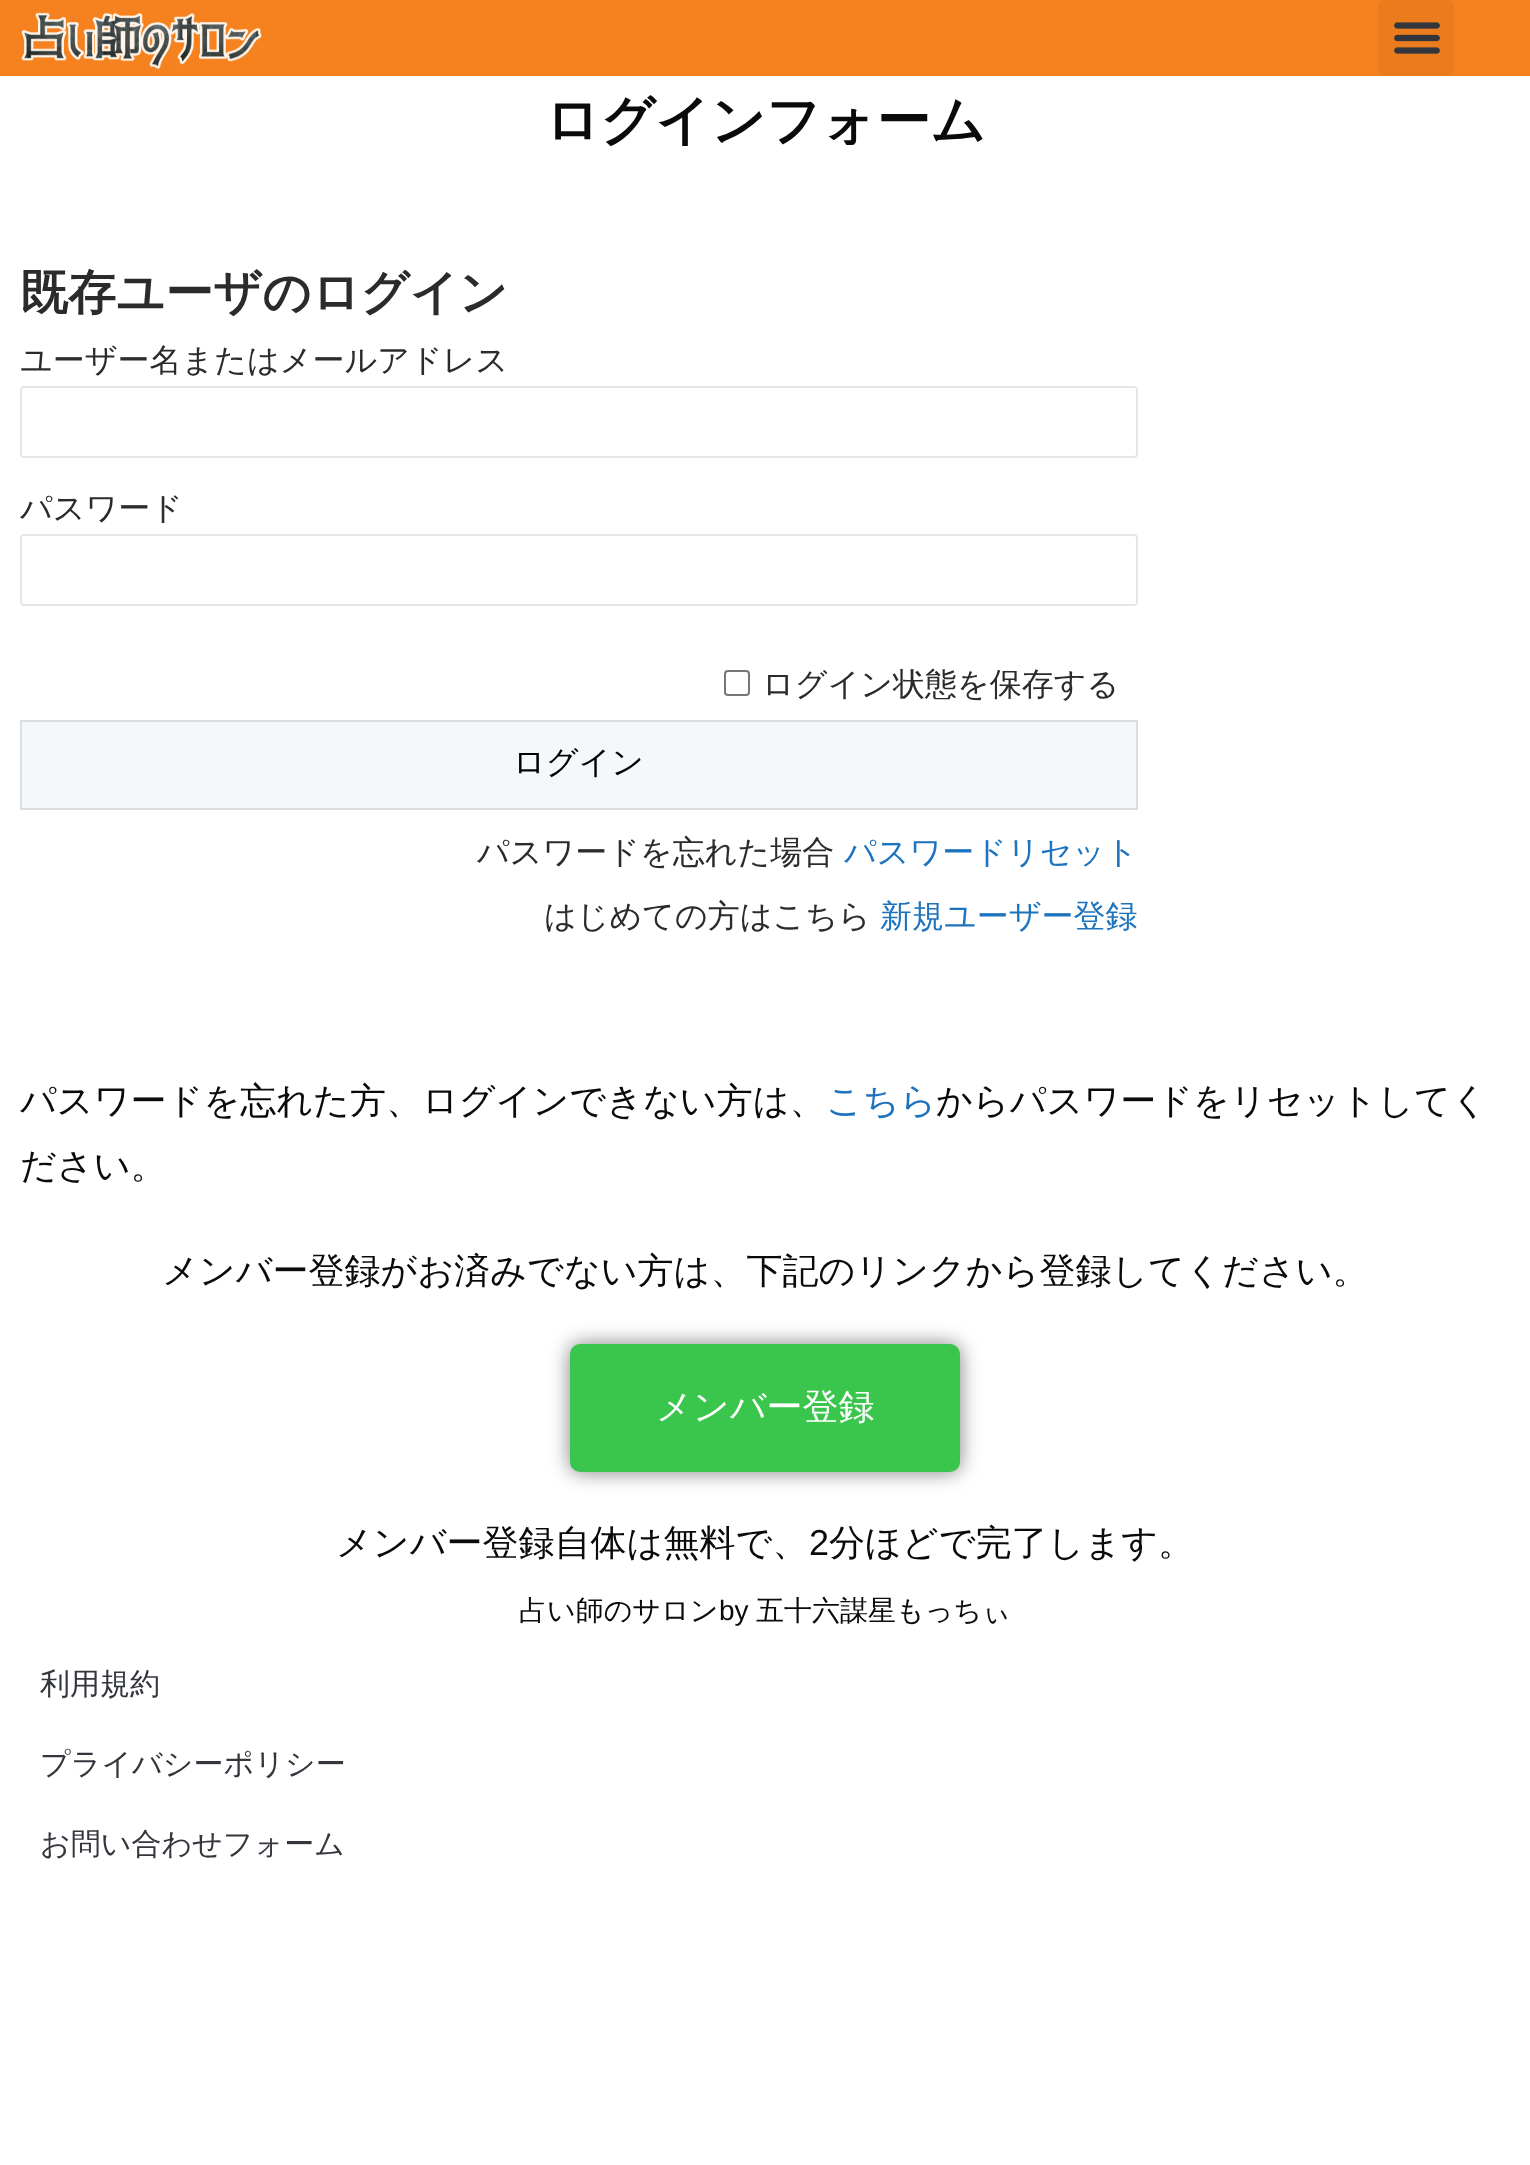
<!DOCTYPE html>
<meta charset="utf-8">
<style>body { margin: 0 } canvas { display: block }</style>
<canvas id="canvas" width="1530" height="2165"></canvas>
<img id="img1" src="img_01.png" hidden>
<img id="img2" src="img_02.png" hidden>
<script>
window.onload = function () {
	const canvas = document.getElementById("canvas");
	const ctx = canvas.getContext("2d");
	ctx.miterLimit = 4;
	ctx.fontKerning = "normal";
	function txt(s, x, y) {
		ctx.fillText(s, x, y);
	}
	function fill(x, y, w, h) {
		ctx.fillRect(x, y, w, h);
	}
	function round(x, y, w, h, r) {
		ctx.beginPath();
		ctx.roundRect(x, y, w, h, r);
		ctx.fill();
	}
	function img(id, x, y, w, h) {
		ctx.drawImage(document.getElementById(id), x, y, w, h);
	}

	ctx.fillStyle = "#FFFFFF";
	fill(0, 0, 1530, 2165);
	ctx.fillStyle = "#F6821F";
	fill(0, 0, 1530, 76);
	img("img1", 21, 12, 241, 57);
	ctx.fillStyle = "#EA7C1D";
	round(1378, 0, 76, 76, 6);
	img("img2", 1394, 22, 46, 32);
	ctx.beginPath();
	ctx.roundRect(21, 387, 1116, 70, 3);
	ctx.strokeStyle = "#E6E6E6";
	ctx.lineWidth = 2;
	ctx.stroke();
	ctx.beginPath();
	ctx.roundRect(21, 535, 1116, 70, 3);
	ctx.stroke();
	ctx.beginPath();
	ctx.roundRect(725, 671, 24, 24, 3);
	ctx.strokeStyle = "#767676";
	ctx.stroke();
	ctx.fillStyle = "#F5F8FA";
	ctx.beginPath();
	ctx.rect(21, 721, 1116, 88);
	ctx.fill();
	ctx.strokeStyle = "#DDDDDD";
	ctx.stroke();
	ctx.fillStyle = "rgba(0, 0, 0, 0.5)";
	ctx.filter = "blur(10px)";
	ctx.beginPath();
	ctx.roundRect(570, 1344, 390, 128, 10);
	ctx.fill();
	ctx.filter = "none";
	ctx.fillStyle = "#3AC54D";
	ctx.beginPath();
	ctx.roundRect(573, 1347, 384, 122, 7);
	ctx.fill();
	ctx.strokeStyle = "#3AC54D";
	ctx.lineWidth = 6;
	ctx.stroke();
	ctx.font = "bold 54px WenQuanYi Zen Hei";
	ctx.fillStyle = "#0A0A0A";
	txt("ログインフォーム", 545, 139);
	ctx.font = "bold 48px WenQuanYi Zen Hei";
	ctx.fillStyle = "#2B2B2B";
	txt("既存ユーザのログイン", 20, 309);
	ctx.font = "500 32px WenQuanYi Zen Hei";
	txt("ユーザー名またはメールアドレス", 20, 371);
	txt("パスワード", 20, 519);
	txt("ログイン状態を保存する", 762, 695);
	ctx.fillStyle = "#000000";
	txt("ログイン", 513, 773);
	ctx.fillStyle = "#2B2B2B";
	txt("パスワードを忘れた場合", 477, 863);
	ctx.fillStyle = "#1E73BE";
	txt("パスワードリセット", 844, 863);
	ctx.fillStyle = "#2B2B2B";
	txt("はじめての方はこちら", 544, 927);
	ctx.fillStyle = "#1E73BE";
	txt("新規ユーザー登録", 880, 927);
	ctx.font = "500 36px WenQuanYi Zen Hei";
	ctx.fillStyle = "#0A0A0A";
	txt("パスワードを忘れた方、ログインできない方は、", 20, 1113);
	ctx.fillStyle = "#1E73BE";
	txt("こちら", 826, 1113);
	ctx.fillStyle = "#0A0A0A";
	txt("からパスワードをリセットしてく", 936, 1113);
	txt("ださい。", 20, 1178);
	txt("メンバー登録がお済みでない方は、下記のリンクから登録してください。", 162, 1283);
	ctx.fillStyle = "#FFFFFF";
	txt("メンバー登録", 656, 1419);
	ctx.fillStyle = "#0A0A0A";
	txt("メンバー登録自体は無料で、", 336, 1555);
	ctx.font = "36px Liberation Sans";
	txt("2", 809, 1555);
	ctx.font = "500 36px WenQuanYi Zen Hei";
	txt("分ほどで完了します。", 829, 1555);
	ctx.font = "500 28px WenQuanYi Zen Hei";
	txt("占い師のサロン", 519, 1620);
	ctx.font = "28px Liberation Sans";
	txt("by", 719, 1620);
	ctx.font = "500 28px WenQuanYi Zen Hei";
	txt("五十六謀星もっちぃ", 756, 1620);
	ctx.font = "500 30px WenQuanYi Zen Hei";
	ctx.fillStyle = "#33373D";
	txt("利用規約", 40, 1694);
	txt("プライバシーポリシー", 40, 1774);
	txt("お問い合わせフォーム", 40, 1854);
};
</script>
